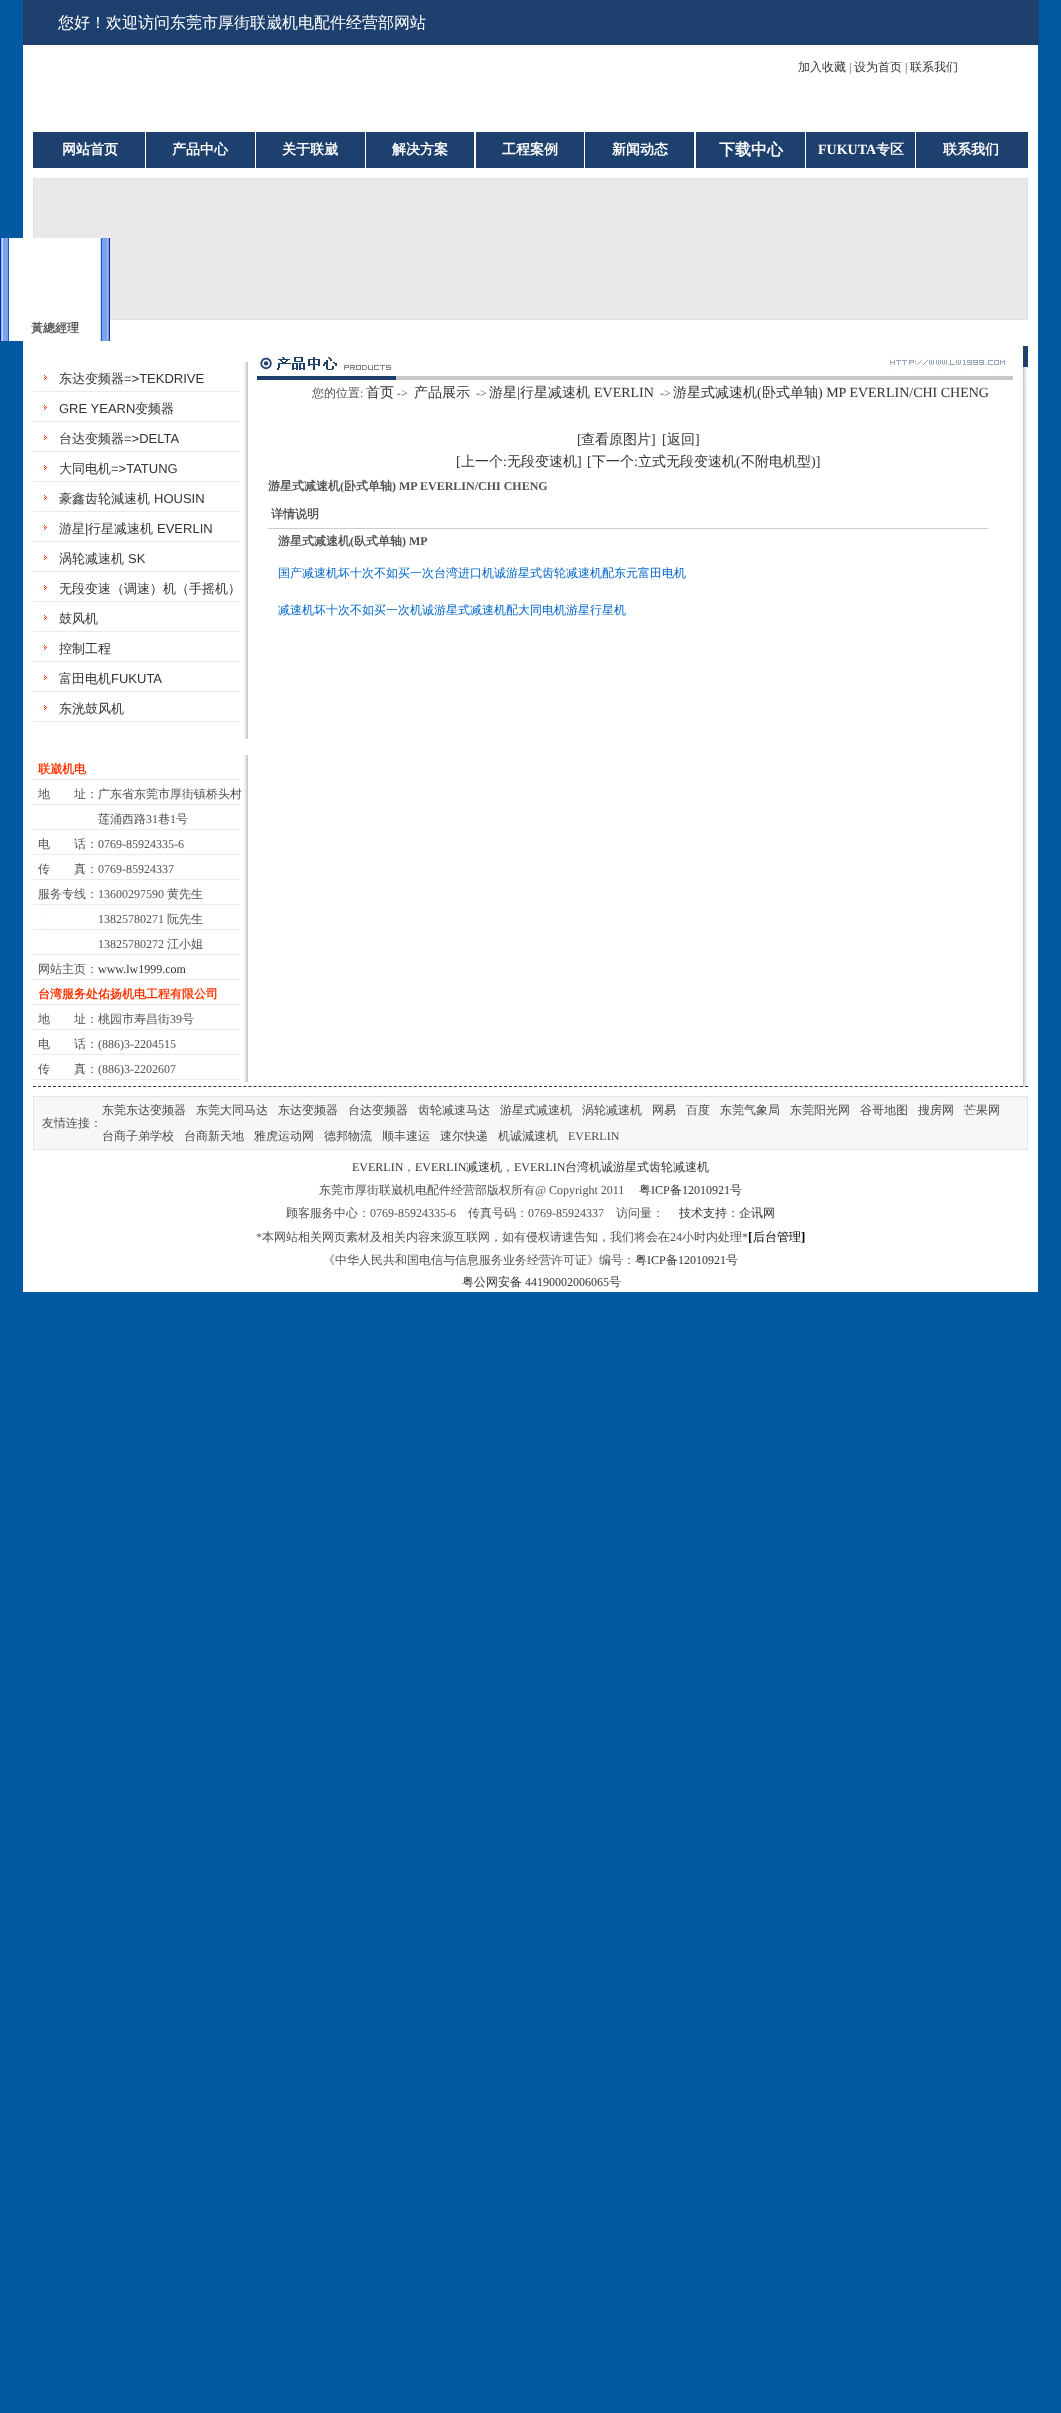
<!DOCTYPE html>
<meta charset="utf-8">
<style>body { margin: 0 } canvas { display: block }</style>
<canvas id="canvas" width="1061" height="2413"></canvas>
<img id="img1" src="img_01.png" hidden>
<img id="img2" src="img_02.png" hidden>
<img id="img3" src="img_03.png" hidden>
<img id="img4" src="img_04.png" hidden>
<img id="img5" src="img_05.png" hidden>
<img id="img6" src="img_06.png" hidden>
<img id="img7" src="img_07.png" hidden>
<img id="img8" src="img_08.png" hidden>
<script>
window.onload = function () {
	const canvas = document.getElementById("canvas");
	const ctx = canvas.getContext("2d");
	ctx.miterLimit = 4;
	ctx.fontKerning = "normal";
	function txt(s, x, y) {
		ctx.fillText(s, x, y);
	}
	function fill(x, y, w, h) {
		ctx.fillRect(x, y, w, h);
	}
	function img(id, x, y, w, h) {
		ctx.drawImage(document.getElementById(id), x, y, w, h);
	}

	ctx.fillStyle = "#0159A2";
	fill(0, 0, 1061, 2413);
	ctx.fillStyle = "#1E406E";
	fill(23, 0, 1016, 45);
	ctx.fillStyle = "#FFFFFF";
	fill(23, 45, 1015, 1247);
	ctx.fillStyle = "#1E406E";
	fill(33, 132, 995, 36);
	ctx.fillStyle = "#FFFFFF";
	fill(145, 132, 1, 36);
	fill(255, 132, 1, 36);
	fill(365, 132, 1, 36);
	fill(474, 132, 2, 36);
	fill(584, 132, 1, 36);
	fill(694, 132, 2, 36);
	fill(805, 132, 1, 36);
	fill(915, 132, 1, 36);
	ctx.strokeStyle = "#E1E1E1";
	ctx.strokeRect(33.5, 178.5, 994, 141);
	ctx.fillStyle = "#E9E9E9";
	fill(34, 179, 993, 140);
	img("img1", 33, 362, 215, 362);
	img("img2", 244, 724, 4, 15);
	img("img3", 33, 755, 215, 327);
	img("img4", 1023, 382, 4, 704);
	img("img5", 256, 346, 772, 36);
	ctx.fillStyle = "#CCCCCC";
	fill(268, 528, 720, 1);
	ctx.beginPath();
	ctx.moveTo(33, 1086.5);
	ctx.lineTo(1028, 1086.5);
	ctx.strokeStyle = "#333333";
	ctx.setLineDash([3, 2.01]);
	ctx.stroke();
	ctx.fillStyle = "#F8F7F7";
	fill(34, 1097, 993, 52);
	ctx.fillStyle = "#E5E5E5";
	fill(33, 1096, 995, 1);
	fill(33, 1149, 69, 1);
	fill(33, 1096, 1, 54);
	fill(1027, 1096, 1, 54);
	fill(102, 1149, 926, 1);
	img("img6", 0, 238, 110, 34);
	img("img7", 0, 272, 110, 10);
	img("img6", 0, 282, 110, 34);
	img("img8", 0, 316, 110, 25);
	ctx.font = "500 16px WenQuanYi Zen Hei";
	ctx.fillStyle = "#FFFFFF";
	txt("您好！欢迎访问东莞市厚街联崴机电配件经营部网站", 58, 28);
	ctx.font = "500 12px WenQuanYi Zen Hei";
	ctx.fillStyle = "#333333";
	txt("加入收藏", 798, 71);
	ctx.font = "12px Liberation Serif";
	ctx.fillStyle = "#525252";
	txt("|", 849, 71);
	ctx.font = "500 12px WenQuanYi Zen Hei";
	ctx.fillStyle = "#333333";
	txt("设为首页", 854, 71);
	ctx.font = "12px Liberation Serif";
	ctx.fillStyle = "#525252";
	txt("|", 905, 71);
	ctx.font = "500 12px WenQuanYi Zen Hei";
	ctx.fillStyle = "#333333";
	txt("联系我们", 910, 71);
	ctx.font = "bold 14px WenQuanYi Zen Hei";
	ctx.fillStyle = "#FFFFFF";
	txt("网站首页", 62, 154);
	txt("产品中心", 172, 154);
	txt("关于联崴", 282, 154);
	txt("解决方案", 392, 154);
	txt("工程案例", 502, 154);
	txt("新闻动态", 612, 154);
	ctx.font = "bold 16px WenQuanYi Zen Hei";
	txt("下载中心", 719, 155);
	ctx.font = "bold 14px Liberation Serif";
	txt("FUKUTA", 818, 154);
	ctx.font = "bold 14px WenQuanYi Zen Hei";
	txt("专区", 876, 154);
	txt("联系我们", 943, 154);
	ctx.font = "500 13px WenQuanYi Zen Hei";
	ctx.fillStyle = "#333333";
	txt("东达变频器", 59, 383);
	ctx.font = "13px Liberation Sans";
	txt("=>TEKDRIVE", 124, 383);
	txt("GRE YEARN", 59, 413);
	ctx.font = "500 13px WenQuanYi Zen Hei";
	txt("变频器", 135, 413);
	txt("台达变频器", 59, 443);
	ctx.font = "13px Liberation Sans";
	txt("=>DELTA", 124, 443);
	ctx.font = "500 13px WenQuanYi Zen Hei";
	txt("大同电机", 59, 473);
	ctx.font = "13px Liberation Sans";
	txt("=>TATUNG", 111, 473);
	ctx.font = "500 13px WenQuanYi Zen Hei";
	txt("豪鑫齿轮減速机", 59, 503);
	ctx.font = "13px Liberation Sans";
	txt("HOUSIN", 154, 503);
	ctx.font = "500 13px WenQuanYi Zen Hei";
	txt("游星", 59, 533);
	ctx.font = "13px Liberation Sans";
	txt("|", 85, 533);
	ctx.font = "500 13px WenQuanYi Zen Hei";
	txt("行星减速机", 88, 533);
	ctx.font = "13px Liberation Sans";
	txt("EVERLIN", 157, 533);
	ctx.font = "500 13px WenQuanYi Zen Hei";
	txt("涡轮减速机", 59, 563);
	ctx.font = "13px Liberation Sans";
	txt("SK", 128, 563);
	ctx.font = "500 13px WenQuanYi Zen Hei";
	txt("无段变速（调速）机（手摇机）", 59, 593);
	txt("鼓风机", 59, 623);
	txt("控制工程", 59, 653);
	txt("富田电机", 59, 683);
	ctx.font = "13px Liberation Sans";
	txt("FUKUTA", 111, 683);
	ctx.font = "500 13px WenQuanYi Zen Hei";
	txt("东洸鼓风机", 59, 713);
	ctx.font = "bold 12px WenQuanYi Zen Hei";
	ctx.fillStyle = "#FF3300";
	txt("联崴机电", 38, 773);
	ctx.font = "500 12px WenQuanYi Zen Hei";
	ctx.fillStyle = "#525252";
	txt("地　　址：广东省东莞市厚街镇桥头村", 38, 798);
	txt("莲涌西路", 98, 823);
	ctx.font = "12px Liberation Serif";
	txt("31", 146, 823);
	ctx.font = "500 12px WenQuanYi Zen Hei";
	txt("巷", 158, 823);
	ctx.font = "12px Liberation Serif";
	txt("1", 170, 823);
	ctx.font = "500 12px WenQuanYi Zen Hei";
	txt("号", 176, 823);
	txt("电　　话：", 38, 848);
	ctx.font = "12px Liberation Serif";
	txt("0769-85924335-6", 98, 848);
	ctx.font = "500 12px WenQuanYi Zen Hei";
	txt("传　　真：", 38, 873);
	ctx.font = "12px Liberation Serif";
	txt("0769-85924337", 98, 873);
	ctx.font = "500 12px WenQuanYi Zen Hei";
	txt("服务专线：", 38, 898);
	ctx.font = "12px Liberation Serif";
	txt("13600297590", 98, 898);
	ctx.font = "500 12px WenQuanYi Zen Hei";
	txt("黄先生", 167, 898);
	ctx.font = "12px Liberation Serif";
	txt("13825780271", 98, 923);
	ctx.font = "500 12px WenQuanYi Zen Hei";
	txt("阮先生", 167, 923);
	ctx.font = "12px Liberation Serif";
	txt("13825780272", 98, 948);
	ctx.font = "500 12px WenQuanYi Zen Hei";
	txt("江小姐", 167, 948);
	txt("网站主页：", 38, 973);
	ctx.font = "12px Liberation Serif";
	ctx.fillStyle = "#333333";
	txt("www.lw1999.com", 98, 973);
	ctx.font = "bold 12px WenQuanYi Zen Hei";
	ctx.fillStyle = "#FF3300";
	txt("台湾服务处佑扬机电工程有限公司", 38, 998);
	ctx.font = "500 12px WenQuanYi Zen Hei";
	ctx.fillStyle = "#525252";
	txt("地　　址：桃园市寿昌街", 38, 1023);
	ctx.font = "12px Liberation Serif";
	txt("39", 170, 1023);
	ctx.font = "500 12px WenQuanYi Zen Hei";
	txt("号", 182, 1023);
	txt("电　　话：", 38, 1048);
	ctx.font = "12px Liberation Serif";
	txt("(886)3-2204515", 98, 1048);
	ctx.font = "500 12px WenQuanYi Zen Hei";
	txt("传　　真：", 38, 1073);
	ctx.font = "12px Liberation Serif";
	txt("(886)3-2202607", 98, 1073);
	ctx.font = "500 12px WenQuanYi Zen Hei";
	txt("您的位置", 312, 397);
	ctx.font = "12px Liberation Serif";
	txt(":", 360, 397);
	ctx.font = "500 14px WenQuanYi Zen Hei";
	ctx.fillStyle = "#333333";
	txt("首页", 366, 397);
	ctx.font = "12px Liberation Serif";
	ctx.fillStyle = "#525252";
	txt("->", 397, 397);
	ctx.font = "500 14px WenQuanYi Zen Hei";
	ctx.fillStyle = "#333333";
	txt("产品展示", 414, 397);
	ctx.font = "12px Liberation Serif";
	ctx.fillStyle = "#525252";
	txt("->", 476, 397);
	ctx.font = "500 14px WenQuanYi Zen Hei";
	ctx.fillStyle = "#333333";
	txt("游星", 489, 397);
	ctx.font = "14px Liberation Serif";
	txt("|", 517, 397);
	ctx.font = "500 14px WenQuanYi Zen Hei";
	txt("行星减速机", 520, 397);
	ctx.font = "14px Liberation Serif";
	txt("EVERLIN", 594, 397);
	ctx.font = "12px Liberation Serif";
	ctx.fillStyle = "#525252";
	txt("->", 660, 397);
	ctx.font = "500 14px WenQuanYi Zen Hei";
	ctx.fillStyle = "#333333";
	txt("游星式减速机", 673, 397);
	ctx.font = "14px Liberation Serif";
	txt("(", 757, 397);
	ctx.font = "500 14px WenQuanYi Zen Hei";
	txt("卧式单轴", 762, 397);
	ctx.font = "14px Liberation Serif";
	txt(") MP EVERLIN/CHI CHENG", 818, 397);
	txt("[", 577, 444);
	ctx.font = "500 14px WenQuanYi Zen Hei";
	txt("查看原图片", 581, 444);
	ctx.font = "14px Liberation Serif";
	txt("]", 651, 444);
	txt("[", 662, 444);
	ctx.font = "500 14px WenQuanYi Zen Hei";
	txt("返回", 667, 444);
	ctx.font = "14px Liberation Serif";
	txt("]", 695, 444);
	txt("[", 456, 466);
	ctx.font = "500 14px WenQuanYi Zen Hei";
	txt("上一个", 461, 466);
	ctx.font = "14px Liberation Serif";
	txt(":", 503, 466);
	ctx.font = "500 14px WenQuanYi Zen Hei";
	txt("无段变速机", 507, 466);
	ctx.font = "14px Liberation Serif";
	txt("]", 577, 466);
	txt("[", 587, 466);
	ctx.font = "500 14px WenQuanYi Zen Hei";
	txt("下一个", 592, 466);
	ctx.font = "14px Liberation Serif";
	txt(":", 634, 466);
	ctx.font = "500 14px WenQuanYi Zen Hei";
	txt("立式无段变速机", 638, 466);
	ctx.font = "14px Liberation Serif";
	txt("(", 736, 466);
	ctx.font = "500 14px WenQuanYi Zen Hei";
	txt("不附电机型", 741, 466);
	ctx.font = "14px Liberation Serif";
	txt(")]", 811, 466);
	ctx.font = "bold 12px WenQuanYi Zen Hei";
	ctx.fillStyle = "#525252";
	txt("游星式减速机", 268, 490);
	ctx.font = "bold 12px Liberation Serif";
	txt("(", 340, 490);
	ctx.font = "bold 12px WenQuanYi Zen Hei";
	txt("卧式单轴", 344, 490);
	ctx.font = "bold 12px Liberation Serif";
	txt(") MP EVERLIN/CHI CHENG", 392, 490);
	ctx.font = "bold 12px WenQuanYi Zen Hei";
	txt("详情说明", 271, 518);
	txt("游星式减速机", 278, 545);
	ctx.font = "bold 12px Liberation Serif";
	txt("(", 350, 545);
	ctx.font = "bold 12px WenQuanYi Zen Hei";
	txt("臥式单轴", 354, 545);
	ctx.font = "bold 12px Liberation Serif";
	txt(") MP", 402, 545);
	ctx.font = "500 12px WenQuanYi Zen Hei";
	ctx.fillStyle = "#0066CC";
	txt("国产减速机坏十次不如买一次台湾进口机诚游星式齿轮减速机配东元富田电机", 278, 577);
	txt("减速机坏十次不如买一次机诚游星式减速机配大同电机游星行星机", 278, 614);
	ctx.fillStyle = "#525252";
	txt("友情连接：", 42, 1127);
	ctx.fillStyle = "#4B4B4B";
	txt("东莞东达变频器", 102, 1114);
	txt("东莞大同马达", 196, 1114);
	txt("东达变频器", 278, 1114);
	txt("台达变频器", 348, 1114);
	txt("齿轮减速马达", 418, 1114);
	txt("游星式减速机", 500, 1114);
	txt("涡轮减速机", 582, 1114);
	txt("网易", 652, 1114);
	txt("百度", 686, 1114);
	txt("东莞气象局", 720, 1114);
	txt("东莞阳光网", 790, 1114);
	txt("谷哥地图", 860, 1114);
	txt("搜房网", 918, 1114);
	txt("芒果网", 964, 1114);
	txt("台商子弟学校", 102, 1140);
	txt("台商新天地", 184, 1140);
	txt("雅虎运动网", 254, 1140);
	txt("德邦物流", 324, 1140);
	txt("顺丰速运", 382, 1140);
	txt("速尔快递", 440, 1140);
	txt("机诚減速机", 498, 1140);
	ctx.font = "12px Liberation Serif";
	txt("EVERLIN", 568, 1140);
	ctx.fillStyle = "#333333";
	txt("EVERLIN", 352, 1171);
	ctx.font = "500 12px WenQuanYi Zen Hei";
	ctx.fillStyle = "#525252";
	txt("，", 403, 1171);
	ctx.font = "12px Liberation Serif";
	ctx.fillStyle = "#333333";
	txt("EVERLIN", 415, 1171);
	ctx.font = "500 12px WenQuanYi Zen Hei";
	txt("减速机", 466, 1171);
	ctx.fillStyle = "#525252";
	txt("，", 502, 1171);
	ctx.font = "12px Liberation Serif";
	ctx.fillStyle = "#333333";
	txt("EVERLIN", 514, 1171);
	ctx.font = "500 12px WenQuanYi Zen Hei";
	txt("台湾机诚游星式齿轮减速机", 565, 1171);
	ctx.fillStyle = "#525252";
	txt("东莞市厚街联崴机电配件经营部版权所有", 319, 1194);
	ctx.font = "12px Liberation Serif";
	txt("@ Copyright 2011", 535, 1194);
	ctx.font = "500 12px WenQuanYi Zen Hei";
	ctx.fillStyle = "#333333";
	txt("粤", 639, 1194);
	ctx.font = "12px Liberation Serif";
	txt("ICP", 651, 1194);
	ctx.font = "500 12px WenQuanYi Zen Hei";
	txt("备", 670, 1194);
	ctx.font = "12px Liberation Serif";
	txt("12010921", 682, 1194);
	ctx.font = "500 12px WenQuanYi Zen Hei";
	txt("号", 730, 1194);
	ctx.fillStyle = "#525252";
	txt("顾客服务中心：", 286, 1217);
	ctx.font = "12px Liberation Serif";
	txt("0769-85924335-6", 370, 1217);
	ctx.font = "500 12px WenQuanYi Zen Hei";
	txt("传真号码：", 468, 1217);
	ctx.font = "12px Liberation Serif";
	txt("0769-85924337", 528, 1217);
	ctx.font = "500 12px WenQuanYi Zen Hei";
	txt("访问量：", 616, 1217);
	ctx.fillStyle = "#333333";
	txt("技术支持：企讯网", 679, 1217);
	ctx.font = "12px Liberation Serif";
	ctx.fillStyle = "#525252";
	txt("*", 256, 1241);
	ctx.font = "500 12px WenQuanYi Zen Hei";
	txt("本网站相关网页素材及相关内容来源互联网，如有侵权请速告知，我们将会在", 262, 1241);
	ctx.font = "12px Liberation Serif";
	txt("24", 670, 1241);
	ctx.font = "500 12px WenQuanYi Zen Hei";
	txt("小时内处理", 682, 1241);
	ctx.font = "12px Liberation Serif";
	txt("*", 742, 1241);
	ctx.font = "bold 13px Liberation Serif";
	ctx.fillStyle = "#000000";
	txt("[", 748, 1241);
	ctx.font = "500 12px WenQuanYi Zen Hei";
	txt("后台管理", 753, 1241);
	ctx.font = "bold 13px Liberation Serif";
	txt("]", 801, 1241);
	ctx.font = "500 12px WenQuanYi Zen Hei";
	ctx.fillStyle = "#525252";
	txt("《中华人民共和国电信与信息服务业务经营许可证》编号：", 323, 1264);
	ctx.fillStyle = "#333333";
	txt("粤", 635, 1264);
	ctx.font = "12px Liberation Serif";
	txt("ICP", 647, 1264);
	ctx.font = "500 12px WenQuanYi Zen Hei";
	txt("备", 666, 1264);
	ctx.font = "12px Liberation Serif";
	txt("12010921", 678, 1264);
	ctx.font = "500 12px WenQuanYi Zen Hei";
	txt("号", 726, 1264);
	txt("粤公网安备", 462, 1286);
	ctx.font = "12px Liberation Serif";
	txt("44190002006065", 525, 1286);
	ctx.font = "500 12px WenQuanYi Zen Hei";
	txt("号", 609, 1286);
	ctx.font = "bold 12px WenQuanYi Zen Hei";
	ctx.fillStyle = "#525252";
	txt("黃總經理", 31, 332);
};
</script>
